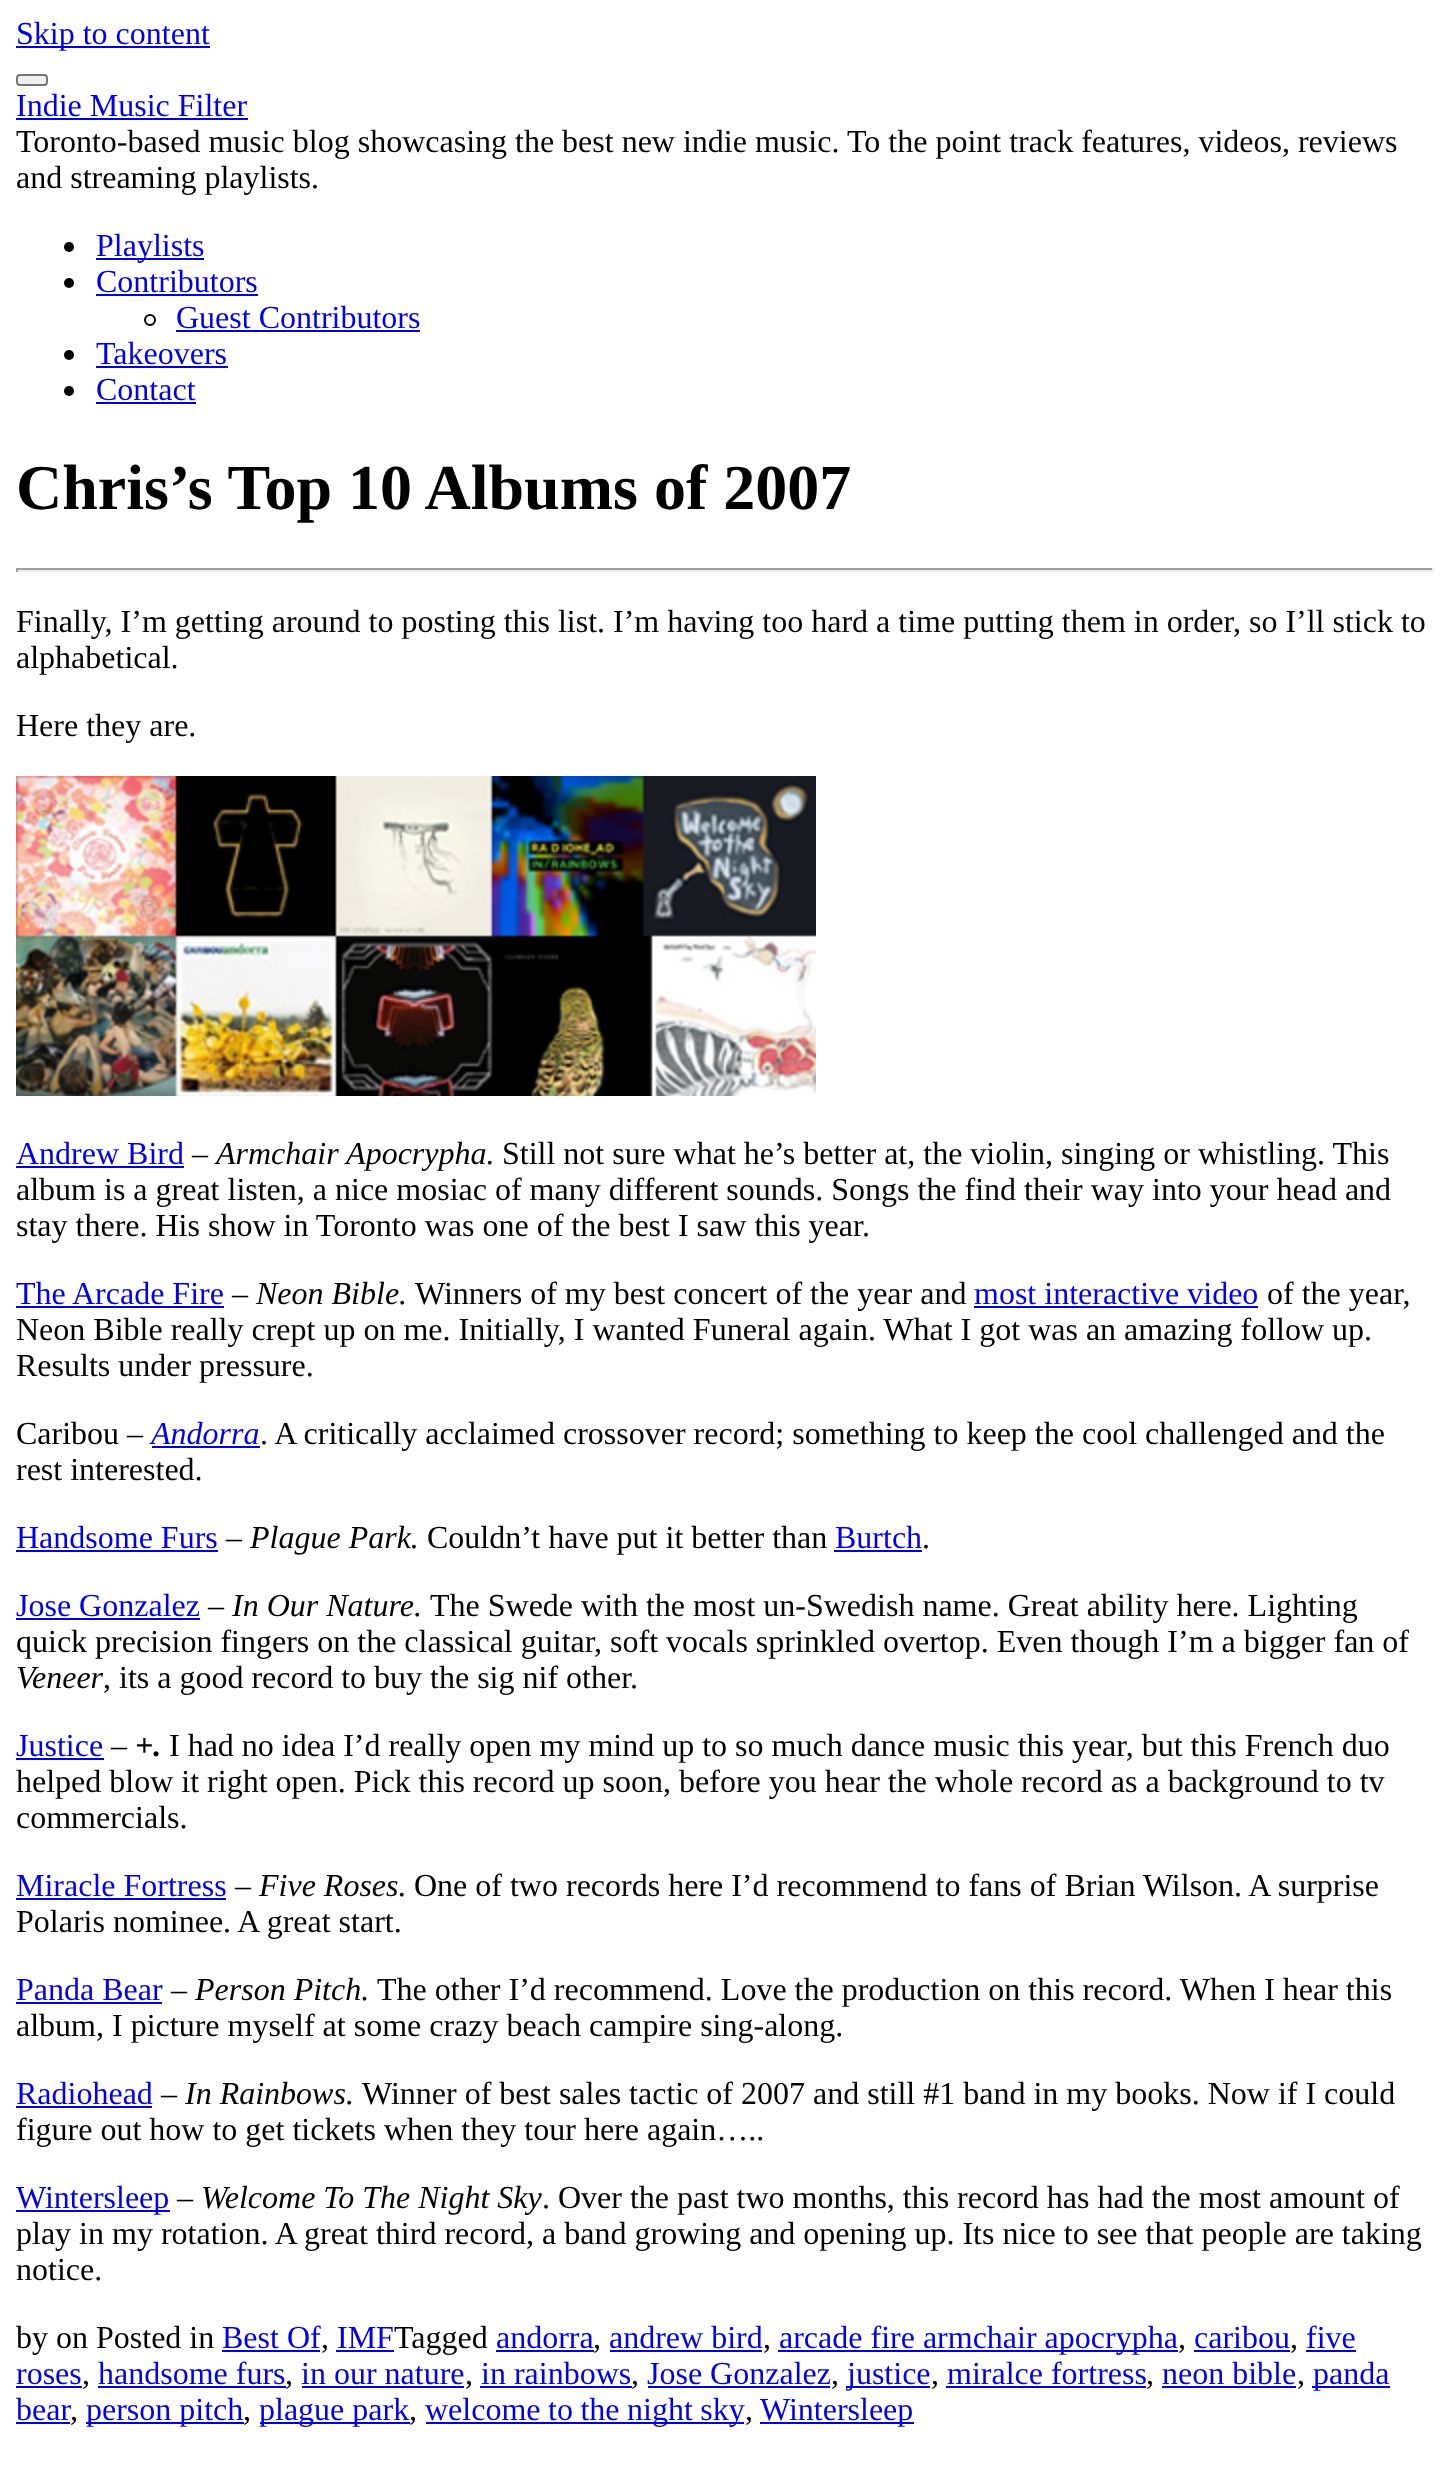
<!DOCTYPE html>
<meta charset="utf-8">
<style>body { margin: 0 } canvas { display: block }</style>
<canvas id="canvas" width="1449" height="2473"></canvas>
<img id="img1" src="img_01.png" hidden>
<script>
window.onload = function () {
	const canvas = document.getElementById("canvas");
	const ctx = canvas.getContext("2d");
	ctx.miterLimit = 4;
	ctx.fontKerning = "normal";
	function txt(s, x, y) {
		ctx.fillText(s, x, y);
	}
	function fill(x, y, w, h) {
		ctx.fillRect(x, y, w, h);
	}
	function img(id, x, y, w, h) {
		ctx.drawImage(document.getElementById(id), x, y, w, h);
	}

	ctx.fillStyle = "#FFFFFF";
	fill(0, 0, 1449, 2473);
	ctx.fillStyle = "#0000EE";
	fill(16, 46, 194, 2);
	ctx.fillStyle = "#EFEFEF";
	ctx.beginPath();
	ctx.roundRect(17, 75, 30, 10, 3);
	ctx.fill();
	ctx.strokeStyle = "#767676";
	ctx.lineWidth = 2;
	ctx.stroke();
	ctx.fillStyle = "#0000EE";
	fill(16, 118, 232, 2);
	ctx.fillStyle = "#000000";
	ctx.beginPath();
	ctx.arc(69, 247, 5, 0, Math.PI * 2);
	ctx.fill();
	ctx.fillStyle = "#0000EE";
	fill(96, 258, 108, 2);
	ctx.fillStyle = "#000000";
	ctx.beginPath();
	ctx.arc(69, 283, 5, 0, Math.PI * 2);
	ctx.fill();
	ctx.fillStyle = "#0000EE";
	fill(96, 294, 162, 2);
	ctx.beginPath();
	ctx.arc(150, 320, 5, 0, Math.PI * 2);
	ctx.strokeStyle = "#000000";
	ctx.stroke();
	fill(176, 330, 244, 2);
	ctx.fillStyle = "#000000";
	ctx.beginPath();
	ctx.arc(69, 355, 5, 0, Math.PI * 2);
	ctx.fill();
	ctx.fillStyle = "#0000EE";
	fill(96, 366, 132, 2);
	ctx.fillStyle = "#000000";
	ctx.beginPath();
	ctx.arc(69, 391, 5, 0, Math.PI * 2);
	ctx.fill();
	ctx.fillStyle = "#0000EE";
	fill(96, 402, 100, 2);
	ctx.fillStyle = "#9F9F9F";
	fill(16, 568, 1418, 2);
	ctx.fillStyle = "#EEEEEE";
	fill(1432, 568, 2, 4);
	fill(16, 570, 1418, 2);
	ctx.fillStyle = "#9F9F9F";
	fill(16, 568, 2, 4);
	img("img1", 16, 776, 800, 320);
	ctx.fillStyle = "#0000EE";
	fill(16, 1166, 168, 2);
	fill(16, 1306, 208, 2);
	fill(974, 1306, 284, 2);
	fill(152, 1446, 108, 2);
	fill(16, 1550, 202, 2);
	fill(834, 1550, 88, 2);
	fill(16, 1618, 184, 2);
	fill(16, 1758, 88, 2);
	fill(16, 1898, 210, 2);
	fill(16, 2002, 146, 2);
	fill(16, 2106, 136, 2);
	fill(16, 2210, 154, 2);
	fill(222, 2350, 98, 2);
	fill(336, 2350, 58, 2);
	fill(496, 2350, 98, 2);
	fill(610, 2350, 152, 2);
	fill(778, 2350, 400, 2);
	fill(1194, 2350, 96, 2);
	fill(1306, 2350, 50, 2);
	fill(16, 2386, 66, 2);
	fill(98, 2386, 188, 2);
	fill(302, 2386, 162, 2);
	fill(480, 2386, 152, 2);
	fill(648, 2386, 182, 2);
	fill(846, 2386, 84, 2);
	fill(946, 2386, 200, 2);
	fill(1162, 2386, 134, 2);
	fill(1312, 2386, 78, 2);
	fill(16, 2422, 54, 2);
	fill(86, 2422, 158, 2);
	fill(260, 2422, 150, 2);
	fill(426, 2422, 318, 2);
	fill(760, 2422, 154, 2);
	ctx.font = "32px Liberation Serif";
	txt("Skip to content", 16, 44);
	txt("Indie Music Filter", 16, 116);
	ctx.fillStyle = "#000000";
	txt("Toronto-based music blog showcasing the best new indie music.", 16, 152);
	txt("To the point track features, videos, reviews", 847, 152);
	txt("and streaming playlists.", 16, 188);
	ctx.fillStyle = "#0000EE";
	txt("Playlists", 96, 256);
	txt("Contributors", 96, 292);
	txt("Guest Contributors", 176, 328);
	txt("Takeovers", 96, 364);
	txt("Contact", 96, 400);
	ctx.font = "bold 64px Liberation Serif";
	ctx.fillStyle = "#000000";
	txt("Chris’s Top 10 Albums of 2007", 16, 509);
	ctx.font = "32px Liberation Serif";
	txt("Finally, I’m getting around to posting this list. I’m having too hard a time putting them in order, so I’ll stick to", 16, 632);
	txt("alphabetical.", 16, 668);
	txt("Here they are.", 16, 736);
	ctx.fillStyle = "#0000EE";
	txt("Andrew Bird", 16, 1164);
	ctx.fillStyle = "#000000";
	txt("–", 192, 1164);
	ctx.font = "italic 32px Liberation Serif";
	txt("Armchair Apocrypha.", 216, 1164);
	ctx.font = "32px Liberation Serif";
	txt("Still not sure what he’s better at, the violin, singing or whistling. This", 502, 1164);
	txt("album is a great listen, a nice mosiac of many different sounds. Songs the find their way into your head and", 16, 1200);
	txt("stay there. His show in Toronto was one of the best I saw this year.", 16, 1236);
	ctx.fillStyle = "#0000EE";
	txt("The Arcade Fire", 16, 1304);
	ctx.fillStyle = "#000000";
	txt("–", 232, 1304);
	ctx.font = "italic 32px Liberation Serif";
	txt("Neon Bible.", 256, 1304);
	ctx.font = "32px Liberation Serif";
	txt("Winners of my best concert of the year and", 415, 1304);
	ctx.fillStyle = "#0000EE";
	txt("most interactive video", 974, 1304);
	ctx.fillStyle = "#000000";
	txt("of the year,", 1267, 1304);
	txt("Neon Bible really crept up on me. Initially, I wanted Funeral again. What I got was an amazing follow up.", 16, 1340);
	txt("Results under pressure.", 16, 1376);
	txt("Caribou –", 16, 1444);
	ctx.font = "italic 32px Liberation Serif";
	ctx.fillStyle = "#0000EE";
	txt("Andorra", 151, 1444);
	ctx.font = "32px Liberation Serif";
	ctx.fillStyle = "#000000";
	txt(". A critically acclaimed crossover record; something to keep the cool challenged and the", 260, 1444);
	txt("rest interested.", 16, 1480);
	ctx.fillStyle = "#0000EE";
	txt("Handsome Furs", 16, 1548);
	ctx.fillStyle = "#000000";
	txt("–", 226, 1548);
	ctx.font = "italic 32px Liberation Serif";
	txt("Plague Park.", 250, 1548);
	ctx.font = "32px Liberation Serif";
	txt("Couldn’t have put it better than", 427, 1548);
	ctx.fillStyle = "#0000EE";
	txt("Burtch", 835, 1548);
	ctx.fillStyle = "#000000";
	txt(".", 922, 1548);
	ctx.fillStyle = "#0000EE";
	txt("Jose Gonzalez", 16, 1616);
	ctx.fillStyle = "#000000";
	txt("–", 208, 1616);
	ctx.font = "italic 32px Liberation Serif";
	txt("In Our Nature.", 232, 1616);
	ctx.font = "32px Liberation Serif";
	txt("The Swede with the most un-Swedish name. Great ability here. Lighting", 430, 1616);
	txt("quick precision fingers on the classical guitar, soft vocals sprinkled overtop. Even though I’m a bigger fan of", 16, 1652);
	ctx.font = "italic 32px Liberation Serif";
	txt("Veneer", 16, 1688);
	ctx.font = "32px Liberation Serif";
	txt(", its a good record to buy the sig nif other.", 103, 1688);
	ctx.fillStyle = "#0000EE";
	txt("Justice", 16, 1756);
	ctx.fillStyle = "#000000";
	txt("–", 111, 1756);
	ctx.font = "italic bold 32px Liberation Serif";
	txt("+.", 135, 1756);
	ctx.font = "32px Liberation Serif";
	txt("I had no idea I’d really open my mind up to so much dance music this year, but this French duo", 169, 1756);
	txt("helped blow it right open. Pick this record up soon, before you hear the whole record as a background to tv", 16, 1792);
	txt("commercials.", 16, 1828);
	ctx.fillStyle = "#0000EE";
	txt("Miracle Fortress", 16, 1896);
	ctx.fillStyle = "#000000";
	txt("–", 235, 1896);
	ctx.font = "italic 32px Liberation Serif";
	txt("Five Roses.", 259, 1896);
	ctx.font = "32px Liberation Serif";
	txt("One of two records here I’d recommend to fans of Brian Wilson. A surprise", 414, 1896);
	txt("Polaris nominee. A great start.", 16, 1932);
	ctx.fillStyle = "#0000EE";
	txt("Panda Bear", 16, 2000);
	ctx.fillStyle = "#000000";
	txt("–", 171, 2000);
	ctx.font = "italic 32px Liberation Serif";
	txt("Person Pitch.", 195, 2000);
	ctx.font = "32px Liberation Serif";
	txt("The other I’d recommend. Love the production on this record. When I hear this", 377, 2000);
	txt("album, I picture myself at some crazy beach campire sing-along.", 16, 2036);
	ctx.fillStyle = "#0000EE";
	txt("Radiohead", 16, 2104);
	ctx.fillStyle = "#000000";
	txt("–", 161, 2104);
	ctx.font = "italic 32px Liberation Serif";
	txt("In Rainbows.", 185, 2104);
	ctx.font = "32px Liberation Serif";
	txt("Winner of best sales tactic of 2007 and still #1 band in my books. Now if I could", 362, 2104);
	txt("figure out how to get tickets when they tour here again…..", 16, 2140);
	ctx.fillStyle = "#0000EE";
	txt("Wintersleep", 16, 2208);
	ctx.fillStyle = "#000000";
	txt("–", 177, 2208);
	ctx.font = "italic 32px Liberation Serif";
	txt("Welcome To The Night Sky", 201, 2208);
	ctx.font = "32px Liberation Serif";
	txt(". Over the past two months, this record has had the most amount of", 542, 2208);
	txt("play in my rotation. A great third record, a band growing and opening up. Its nice to see that people are taking", 16, 2244);
	txt("notice.", 16, 2280);
	txt("by on Posted in", 16, 2348);
	ctx.fillStyle = "#0000EE";
	txt("Best Of", 222, 2348);
	ctx.fillStyle = "#000000";
	txt(",", 321, 2348);
	ctx.fillStyle = "#0000EE";
	txt("IMF", 337, 2348);
	ctx.fillStyle = "#000000";
	txt("Tagged", 394, 2348);
	ctx.fillStyle = "#0000EE";
	txt("andorra", 496, 2348);
	ctx.fillStyle = "#000000";
	txt(",", 593, 2348);
	ctx.fillStyle = "#0000EE";
	txt("andrew bird", 609, 2348);
	ctx.fillStyle = "#000000";
	txt(",", 763, 2348);
	ctx.fillStyle = "#0000EE";
	txt("arcade fire armchair apocrypha", 779, 2348);
	ctx.fillStyle = "#000000";
	txt(",", 1178, 2348);
	ctx.fillStyle = "#0000EE";
	txt("caribou", 1194, 2348);
	ctx.fillStyle = "#000000";
	txt(",", 1290, 2348);
	ctx.fillStyle = "#0000EE";
	txt("five", 1306, 2348);
	txt("roses", 16, 2384);
	ctx.fillStyle = "#000000";
	txt(",", 82, 2384);
	ctx.fillStyle = "#0000EE";
	txt("handsome furs", 98, 2384);
	ctx.fillStyle = "#000000";
	txt(",", 285, 2384);
	ctx.fillStyle = "#0000EE";
	txt("in our nature", 301, 2384);
	ctx.fillStyle = "#000000";
	txt(",", 465, 2384);
	ctx.fillStyle = "#0000EE";
	txt("in rainbows", 481, 2384);
	ctx.fillStyle = "#000000";
	txt(",", 631, 2384);
	ctx.fillStyle = "#0000EE";
	txt("Jose Gonzalez", 647, 2384);
	ctx.fillStyle = "#000000";
	txt(",", 831, 2384);
	ctx.fillStyle = "#0000EE";
	txt("justice", 847, 2384);
	ctx.fillStyle = "#000000";
	txt(",", 931, 2384);
	ctx.fillStyle = "#0000EE";
	txt("miralce fortress", 947, 2384);
	ctx.fillStyle = "#000000";
	txt(",", 1146, 2384);
	ctx.fillStyle = "#0000EE";
	txt("neon bible", 1162, 2384);
	ctx.fillStyle = "#000000";
	txt(",", 1297, 2384);
	ctx.fillStyle = "#0000EE";
	txt("panda", 1313, 2384);
	txt("bear", 16, 2420);
	ctx.fillStyle = "#000000";
	txt(",", 70, 2420);
	ctx.fillStyle = "#0000EE";
	txt("person pitch", 86, 2420);
	ctx.fillStyle = "#000000";
	txt(",", 243, 2420);
	ctx.fillStyle = "#0000EE";
	txt("plague park", 259, 2420);
	ctx.fillStyle = "#000000";
	txt(",", 409, 2420);
	ctx.wordSpacing = "-0.5px";
	ctx.fillStyle = "#0000EE";
	txt("welcome to the night sky", 425, 2420);
	ctx.wordSpacing = "0px";
	ctx.fillStyle = "#000000";
	txt(",", 745, 2420);
	ctx.fillStyle = "#0000EE";
	txt("Wintersleep", 760, 2420);
};
</script>
